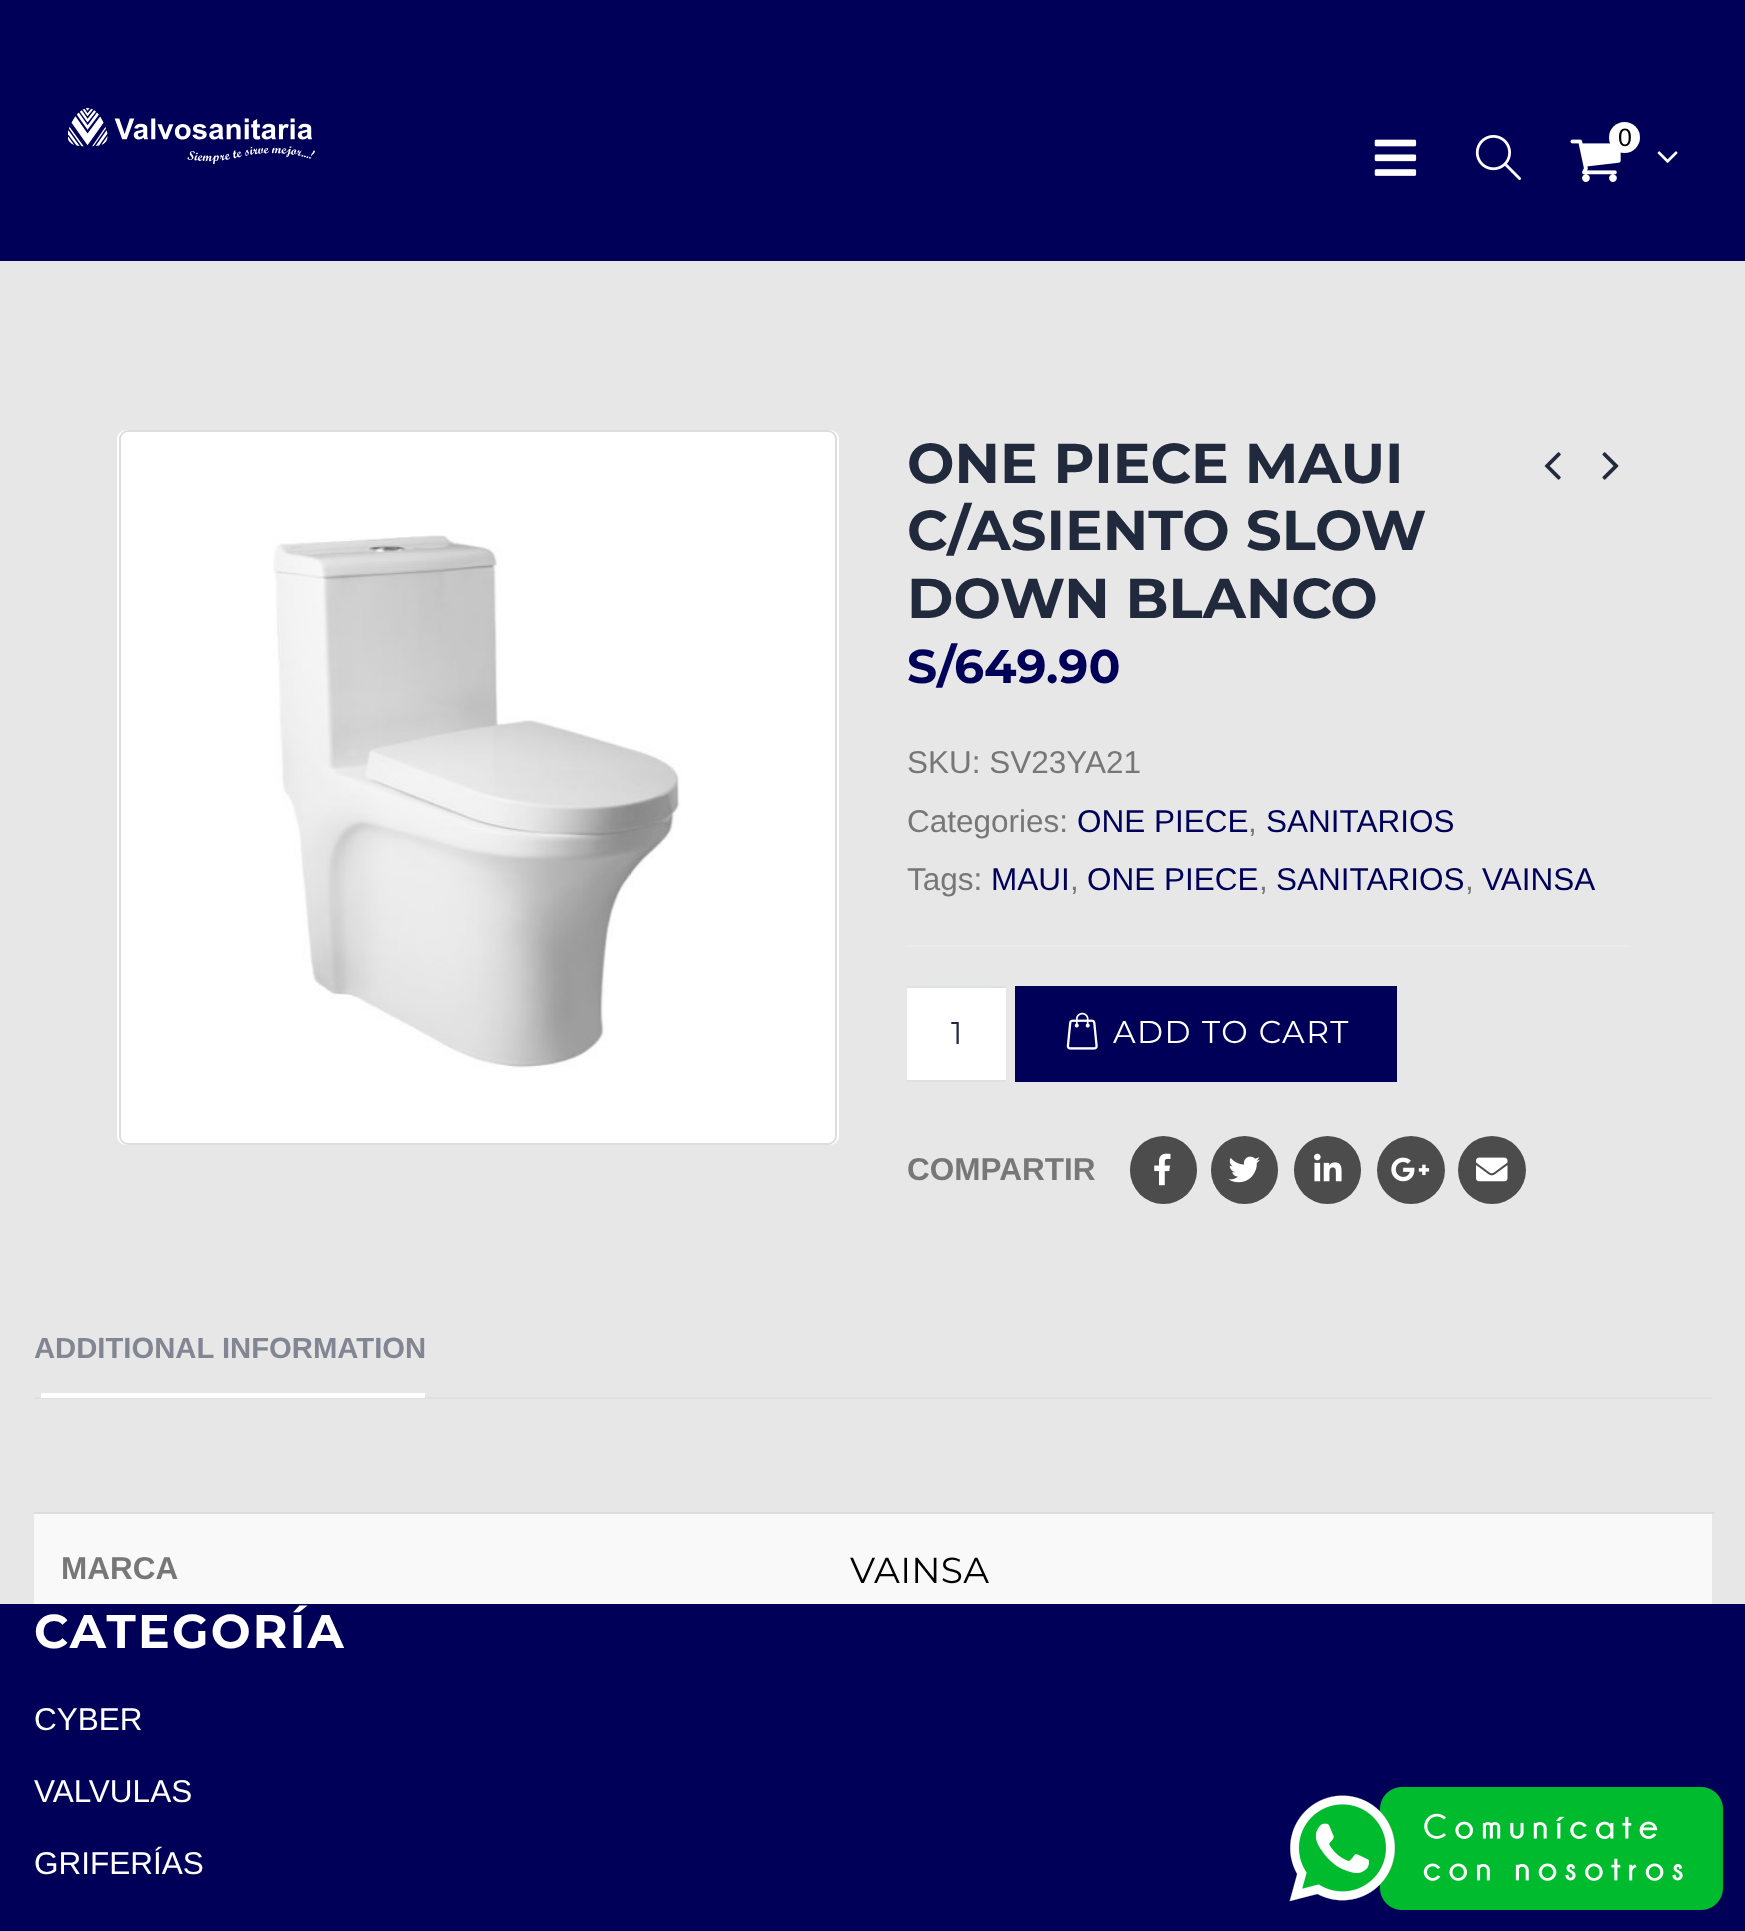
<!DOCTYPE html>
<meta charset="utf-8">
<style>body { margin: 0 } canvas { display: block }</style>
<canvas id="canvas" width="1745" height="1931"></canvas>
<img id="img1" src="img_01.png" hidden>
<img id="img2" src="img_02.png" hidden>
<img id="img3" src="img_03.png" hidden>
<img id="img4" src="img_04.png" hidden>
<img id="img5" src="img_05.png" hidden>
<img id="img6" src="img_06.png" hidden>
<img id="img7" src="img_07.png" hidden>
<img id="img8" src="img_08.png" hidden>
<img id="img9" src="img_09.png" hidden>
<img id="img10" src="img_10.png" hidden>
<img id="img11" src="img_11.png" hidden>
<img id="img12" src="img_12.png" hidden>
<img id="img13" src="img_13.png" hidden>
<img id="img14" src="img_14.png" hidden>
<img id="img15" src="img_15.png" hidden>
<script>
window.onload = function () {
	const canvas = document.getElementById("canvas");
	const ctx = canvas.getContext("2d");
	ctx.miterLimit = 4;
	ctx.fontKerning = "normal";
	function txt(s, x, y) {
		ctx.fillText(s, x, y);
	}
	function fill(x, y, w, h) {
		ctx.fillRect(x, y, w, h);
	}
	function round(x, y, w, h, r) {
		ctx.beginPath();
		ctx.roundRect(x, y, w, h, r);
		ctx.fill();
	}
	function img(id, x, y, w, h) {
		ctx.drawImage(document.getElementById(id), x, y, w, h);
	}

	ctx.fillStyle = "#010059";
	fill(0, 0, 1745, 1931);
	img("img1", 68, 108, 247, 56);
	img("img2", 1374, 139, 43, 37);
	img("img3", 1475, 135, 46, 45);
	img("img4", 1570, 139, 51, 43);
	ctx.fillStyle = "#FFFFFF";
	ctx.beginPath();
	ctx.arc(1624.5, 137.5, 15.5, 0, Math.PI * 2);
	ctx.fill();
	img("img5", 1657, 151, 21, 12);
	ctx.fillStyle = "#E7E7E8";
	fill(0, 261, 1745, 1343);
	ctx.fillStyle = "#FFFFFF";
	round(117, 430, 722, 715, 9);
	ctx.beginPath();
	ctx.roundRect(120, 431, 716, 713, 8);
	ctx.strokeStyle = "#DDDDDD";
	ctx.lineWidth = 2;
	ctx.stroke();
	img("img6", 273, 535, 408, 533);
	img("img7", 1544, 452, 17, 28);
	img("img8", 1602, 452, 17, 28);
	ctx.fillStyle = "#EBEBEB";
	fill(907, 945, 722, 2);
	ctx.fillStyle = "#FFFFFF";
	fill(907, 988, 99, 92);
	ctx.fillStyle = "#DAE2E6";
	fill(907, 986, 99, 2);
	fill(907, 1080, 99, 2);
	ctx.fillStyle = "#010059";
	fill(1015, 986, 382, 96);
	img("img9", 1066, 1012, 32, 38);
	ctx.fillStyle = "#4C4C4C";
	round(1130, 1136, 67, 68, 33.5);
	img("img10", 1154, 1153, 17, 33);
	round(1211, 1136, 67, 68, 33.5);
	img("img11", 1228, 1156, 32, 27);
	round(1294, 1136, 67, 68, 33.5);
	img("img12", 1314, 1153, 28, 29);
	ctx.beginPath();
	ctx.arc(1411, 1170, 34, 0, Math.PI * 2);
	ctx.fill();
	img("img13", 1391, 1157, 39, 25);
	ctx.beginPath();
	ctx.arc(1492, 1170, 34, 0, Math.PI * 2);
	ctx.fill();
	img("img14", 1476, 1157, 32, 25);
	ctx.fillStyle = "#DAE2E6";
	fill(34, 1397, 1678, 2);
	ctx.fillStyle = "#FFFFFF";
	fill(41, 1393, 384, 5);
	ctx.fillStyle = "#F9F9F9";
	fill(34, 1514, 1678, 90);
	ctx.fillStyle = "#DDDDDD";
	fill(34, 1512, 1681, 2);
	img("img15", 1289, 1787, 434, 123);
	ctx.font = "25px Liberation Sans";
	ctx.fillStyle = "#000000";
	txt("0", 1618, 146);
	ctx.font = "bold 56.25px Montserrat";
	ctx.fillStyle = "#21293C";
	txt("ONE PIECE MAUI", 907, 483);
	txt("C/ASIENTO SLOW", 907, 550);
	txt("DOWN BLANCO", 907, 618);
	ctx.font = "bold 47.25px Montserrat";
	ctx.fillStyle = "#010059";
	txt("S/", 907, 683);
	txt("649.90", 954, 683);
	ctx.font = "31.5px Liberation Sans";
	ctx.fillStyle = "#777777";
	txt("SKU: SV23YA21", 907, 773);
	txt("Categories:", 907, 832);
	ctx.fillStyle = "#010059";
	txt("ONE PIECE", 1077, 832);
	ctx.fillStyle = "#777777";
	txt(",", 1248, 832);
	ctx.fillStyle = "#010059";
	txt("SANITARIOS", 1266, 832);
	ctx.fillStyle = "#777777";
	txt("Tags:", 907, 890);
	ctx.fillStyle = "#010059";
	txt("MAUI", 991, 890);
	ctx.fillStyle = "#777777";
	txt(",", 1070, 890);
	ctx.fillStyle = "#010059";
	txt("ONE PIECE", 1087, 890);
	ctx.fillStyle = "#777777";
	txt(",", 1259, 890);
	ctx.fillStyle = "#010059";
	txt("SANITARIOS", 1276, 890);
	ctx.fillStyle = "#777777";
	txt(",", 1465, 890);
	ctx.fillStyle = "#010059";
	txt("VAINSA", 1482, 890);
	ctx.font = "31.5px Montserrat";
	ctx.fillStyle = "#21293C";
	txt("1", 951, 1044);
	ctx.letterSpacing = "1.5px";
	ctx.fillStyle = "#FFFFFF";
	txt("ADD TO CART", 1113, 1043);
	ctx.letterSpacing = "0px";
	ctx.font = "bold 31.5px Liberation Sans";
	ctx.fillStyle = "#777777";
	txt("COMPARTIR", 907, 1180);
	ctx.font = "bold 29.25px Liberation Sans";
	ctx.fillStyle = "#818692";
	txt("ADDITIONAL INFORMATION", 34, 1358);
	ctx.font = "bold 31.5px Liberation Sans";
	ctx.fillStyle = "#777777";
	txt("MARCA", 61, 1579);
	ctx.letterSpacing = "0.25px";
	ctx.font = "36px Montserrat";
	ctx.fillStyle = "#000000";
	txt("VAINSA", 850, 1583);
	ctx.letterSpacing = "2.25px";
	ctx.font = "bold 47.25px Montserrat";
	ctx.fillStyle = "#FFFFFF";
	txt("CATEGORÍA", 34, 1648);
	ctx.letterSpacing = "0px";
	ctx.font = "31.5px Liberation Sans";
	txt("CYBER", 34, 1730);
	txt("VALVULAS", 34, 1802);
	txt("GRIFERÍAS", 34, 1874);
};
</script>
